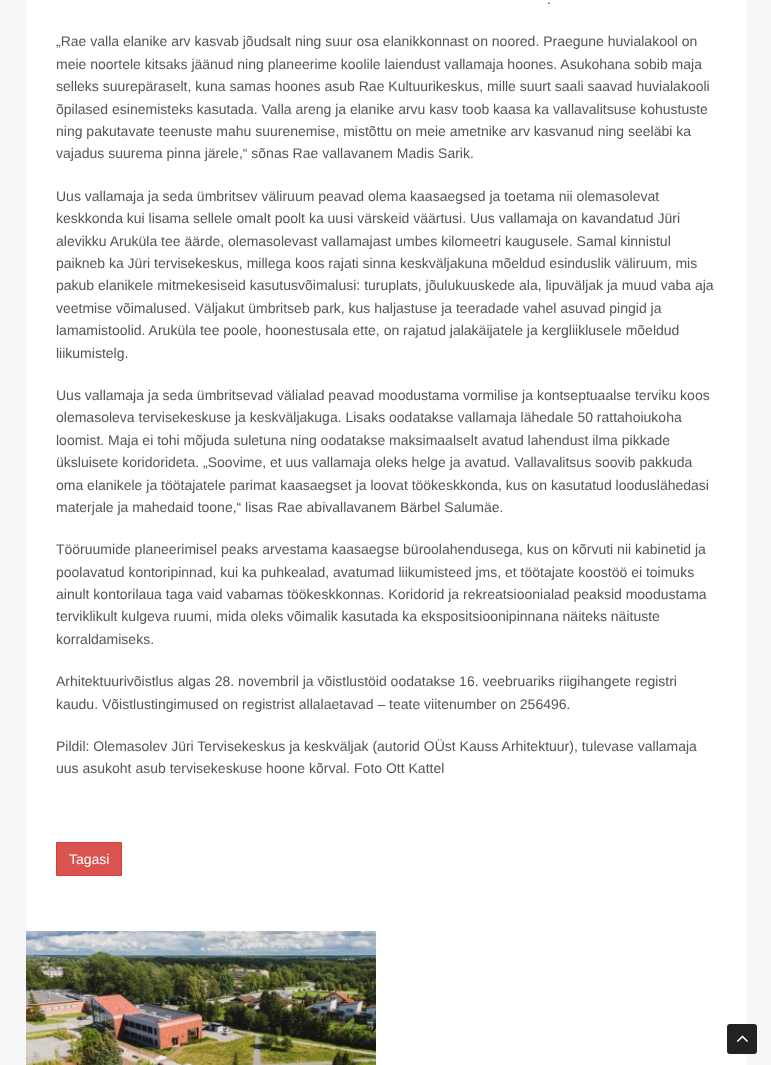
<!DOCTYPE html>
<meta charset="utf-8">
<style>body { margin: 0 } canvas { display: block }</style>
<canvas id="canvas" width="771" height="1065"></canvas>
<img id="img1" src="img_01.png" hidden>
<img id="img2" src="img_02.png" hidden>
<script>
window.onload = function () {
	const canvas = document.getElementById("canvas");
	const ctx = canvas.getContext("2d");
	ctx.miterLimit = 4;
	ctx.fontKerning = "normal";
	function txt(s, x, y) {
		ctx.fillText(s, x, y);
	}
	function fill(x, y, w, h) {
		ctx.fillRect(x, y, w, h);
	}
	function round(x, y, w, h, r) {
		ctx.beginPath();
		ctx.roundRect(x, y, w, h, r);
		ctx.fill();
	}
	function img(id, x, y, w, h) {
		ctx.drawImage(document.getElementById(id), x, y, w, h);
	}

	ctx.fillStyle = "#F7F7F7";
	fill(0, 0, 771, 1065);
	ctx.fillStyle = "#FFFFFF";
	fill(26, 0, 720, 1065);
	ctx.fillStyle = "#D9534F";
	ctx.beginPath();
	ctx.rect(56.5, 842.5, 65, 33);
	ctx.fill();
	ctx.strokeStyle = "#D43F3A";
	ctx.stroke();
	img("img1", 26, 931, 350, 134);
	ctx.fillStyle = "#222222";
	round(727, 1024, 30, 30, 3);
	img("img2", 736, 1035, 12, 7);
	ctx.font = "14px Liberation Sans";
	ctx.fillStyle = "#555555";
	txt(".", 547, 4);
	txt("„Rae valla elanike arv kasvab jõudsalt ning suur osa elanikkonnast on noored. Praegune huvialakool on", 56, 46);
	txt("meie noortele kitsaks jäänud ning planeerime koolile laiendust vallamaja hoones. Asukohana sobib maja", 56, 69);
	txt("selleks suurepäraselt, kuna samas hoones asub Rae Kultuurikeskus, mille suurt saali saavad huvialakooli", 56, 91);
	txt("õpilased esinemisteks kasutada. Valla areng ja elanike arvu kasv toob kaasa ka vallavalitsuse kohustuste", 56, 114);
	txt("ning pakutavate teenuste mahu suurenemise, mistõttu on meie ametnike arv kasvanud ning seeläbi ka", 56, 136);
	txt("vajadus suurema pinna järele,“ sõnas Rae vallavanem Madis Sarik.", 56, 158);
	txt("Uus vallamaja ja seda ümbritsev väliruum peavad olema kaasaegsed ja toetama nii olemasolevat", 56, 201);
	txt("keskkonda kui lisama sellele omalt poolt ka uusi värskeid väärtusi. Uus vallamaja on kavandatud Jüri", 56, 223);
	txt("alevikku Aruküla tee äärde, olemasolevast vallamajast umbes kilomeetri kaugusele. Samal kinnistul", 56, 246);
	txt("paikneb ka Jüri tervisekeskus, millega koos rajati sinna keskväljakuna mõeldud esinduslik väliruum, mis", 56, 268);
	txt("pakub elanikele mitmekesiseid kasutusvõimalusi: turuplats, jõulukuuskede ala, lipuväljak ja muud vaba aja", 56, 290);
	txt("veetmise võimalused. Väljakut ümbritseb park, kus haljastuse ja teeradade vahel asuvad pingid ja", 56, 313);
	txt("lamamistoolid. Aruküla tee poole, hoonestusala ette, on rajatud jalakäijatele ja kergliiklusele mõeldud", 56, 335);
	txt("liikumistelg.", 56, 358);
	txt("Uus vallamaja ja seda ümbritsevad välialad peavad moodustama vormilise ja kontseptuaalse terviku koos", 56, 400);
	txt("olemasoleva tervisekeskuse ja keskväljakuga. Lisaks oodatakse vallamaja lähedale 50 rattahoiukoha", 56, 422);
	txt("loomist. Maja ei tohi mõjuda suletuna ning oodatakse maksimaalselt avatud lahendust ilma pikkade", 56, 445);
	txt("üksluisete koridorideta. „Soovime, et uus vallamaja oleks helge ja avatud. Vallavalitsus soovib pakkuda", 56, 467);
	txt("oma elanikele ja töötajatele parimat kaasaegset ja loovat töökeskkonda, kus on kasutatud looduslähedasi", 56, 490);
	txt("materjale ja mahedaid toone,“ lisas Rae abivallavanem Bärbel Salumäe.", 56, 512);
	txt("Tööruumide planeerimisel peaks arvestama kaasaegse büroolahendusega, kus on kõrvuti nii kabinetid ja", 56, 554);
	txt("poolavatud kontoripinnad, kui ka puhkealad, avatumad liikumisteed jms, et töötajate koostöö ei toimuks", 56, 577);
	txt("ainult kontorilaua taga vaid vabamas töökeskkonnas. Koridorid ja rekreatsioonialad peaksid moodustama", 56, 599);
	txt("terviklikult kulgeva ruumi, mida oleks võimalik kasutada ka ekspositsioonipinnana näiteks näituste", 56, 621);
	txt("korraldamiseks.", 56, 644);
	txt("Arhitektuurivõistlus algas 28. novembril ja võistlustöid oodatakse 16. veebruariks riigihangete registri", 56, 686);
	txt("kaudu. Võistlustingimused on registrist allalaetavad – teate viitenumber on 256496.", 56, 709);
	txt("Pildil: Olemasolev Jüri Tervisekeskus ja keskväljak (autorid OÜst Kauss Arhitektuur), tulevase vallamaja", 56, 751);
	txt("uus asukoht asub tervisekeskuse hoone kõrval. Foto Ott Kattel", 56, 773);
	ctx.fillStyle = "#FFFFFF";
	txt("Tagasi", 69, 864);
};
</script>
